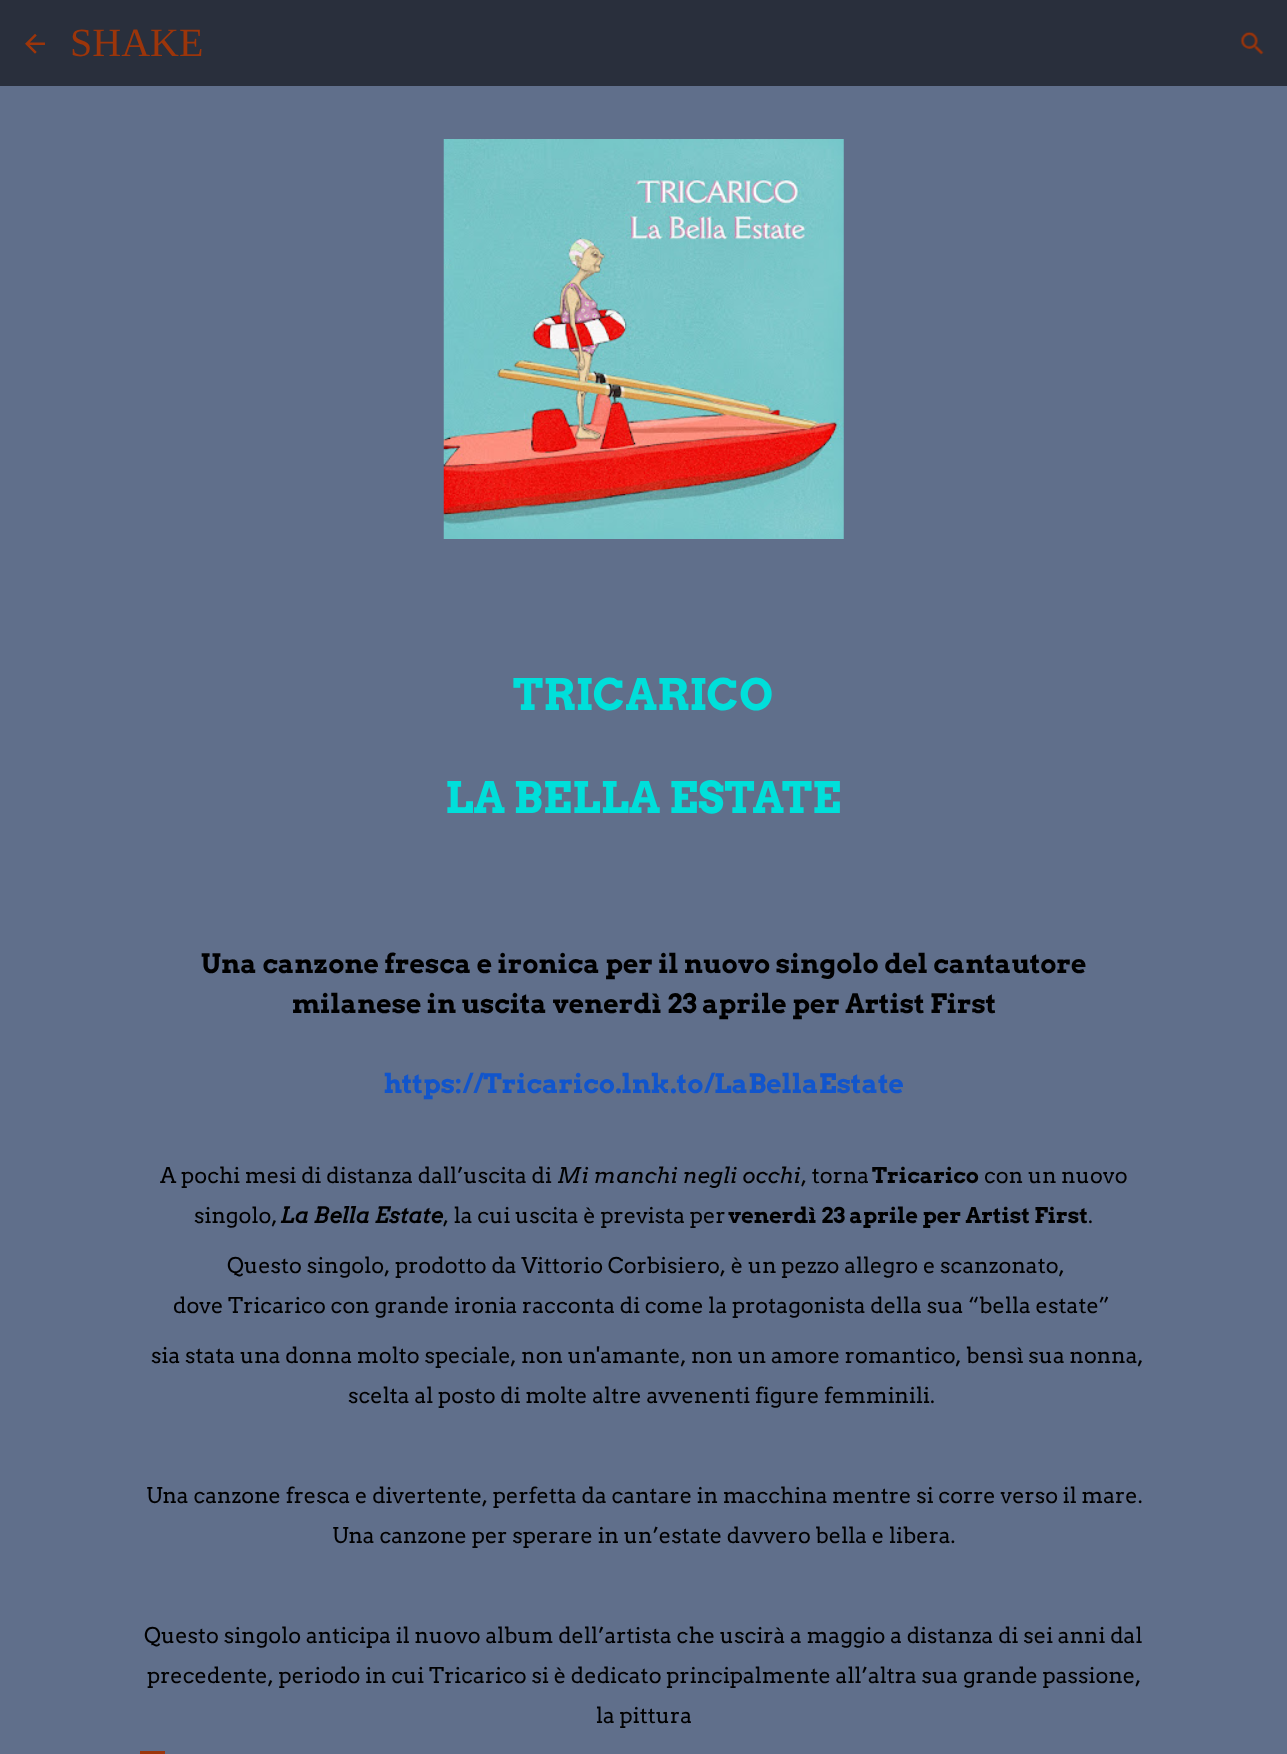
<!DOCTYPE html>
<meta charset="utf-8">
<style>body { margin: 0 } canvas { display: block }</style>
<canvas id="canvas" width="1287" height="1754"></canvas>
<img id="img1" src="img_01.png" hidden>
<img id="img2" src="img_02.png" hidden>
<img id="img3" src="img_03.png" hidden>
<script>
window.onload = function () {
	const canvas = document.getElementById("canvas");
	const ctx = canvas.getContext("2d");
	ctx.miterLimit = 4;
	ctx.fontKerning = "normal";
	function txt(s, x, y) {
		ctx.fillText(s, x, y);
	}
	function fill(x, y, w, h) {
		ctx.fillRect(x, y, w, h);
	}
	function img(id, x, y, w, h) {
		ctx.drawImage(document.getElementById(id), x, y, w, h);
	}

	ctx.fillStyle = "#606F8B";
	fill(0, 0, 1287, 1754);
	ctx.fillStyle = "#292F3C";
	fill(0, 0, 1287, 86);
	img("img1", 25, 34, 20, 20);
	img("img2", 1240, 31, 24, 24);
	img("img3", 443, 139, 401, 400);
	ctx.fillStyle = "#9C350A";
	fill(140, 1751, 25, 3);
	ctx.font = "40px Liberation Serif";
	txt("SHAKE", 70, 56);
	ctx.font = "bold 43.25px Arvo";
	ctx.fillStyle = "#00DFDA";
	txt("TRICARICO", 513, 710);
	txt("LA BELLA ESTATE", 445, 813);
	ctx.font = "bold 26.7px Arvo";
	ctx.fillStyle = "#000000";
	txt("Una canzone fresca e ironica per il nuovo singolo del cantautore", 201, 973);
	txt("milanese in uscita venerdì 23 aprile per Artist First", 292, 1013);
	ctx.fillStyle = "#1155CC";
	txt("https://Tricarico.lnk.to/LaBellaEstate", 384, 1093);
	ctx.font = "21.65px Arvo";
	ctx.fillStyle = "#000000";
	txt("A pochi mesi di distanza dall’uscita di", 160, 1183);
	ctx.font = "italic 21.65px Arvo";
	txt("Mi manchi negli occhi", 557, 1183);
	ctx.font = "21.65px Arvo";
	txt(", torna", 801, 1183);
	ctx.font = "bold 21.65px Arvo";
	txt("Tricarico", 872, 1183);
	ctx.font = "21.65px Arvo";
	txt("con un nuovo", 984, 1183);
	txt("singolo,", 194, 1223);
	ctx.font = "italic bold 21.65px Arvo";
	txt("La Bella Estate", 280, 1223);
	ctx.font = "21.65px Arvo";
	txt(", la cui uscita è prevista per", 443, 1223);
	ctx.font = "bold 21.65px Arvo";
	txt("venerdì 23 aprile per Artist First", 728, 1223);
	ctx.font = "21.65px Arvo";
	txt(".", 1088, 1223);
	txt("Questo singolo, prodotto da Vittorio Corbisiero, è un pezzo allegro e scanzonato,", 227, 1273);
	txt("dove Tricarico con grande ironia racconta di come la protagonista della sua “bella estate”", 173, 1313);
	txt("sia stata una donna molto speciale, non un'amante, non un amore romantico, bensì sua nonna,", 151, 1363);
	txt("scelta al posto di molte altre avvenenti figure femminili.", 348, 1403);
	txt("Una canzone fresca e divertente, perfetta da cantare in macchina mentre si corre verso il mare.", 146, 1503);
	txt("Una canzone per sperare in un’estate davvero bella e libera.", 332, 1543);
	txt("Questo singolo anticipa il nuovo album dell’artista che uscirà a maggio a distanza di sei anni dal", 144, 1643);
	txt("precedente, periodo in cui Tricarico si è dedicato principalmente all’altra sua grande passione,", 147, 1683);
	txt("la pittura", 596, 1723);
};
</script>
